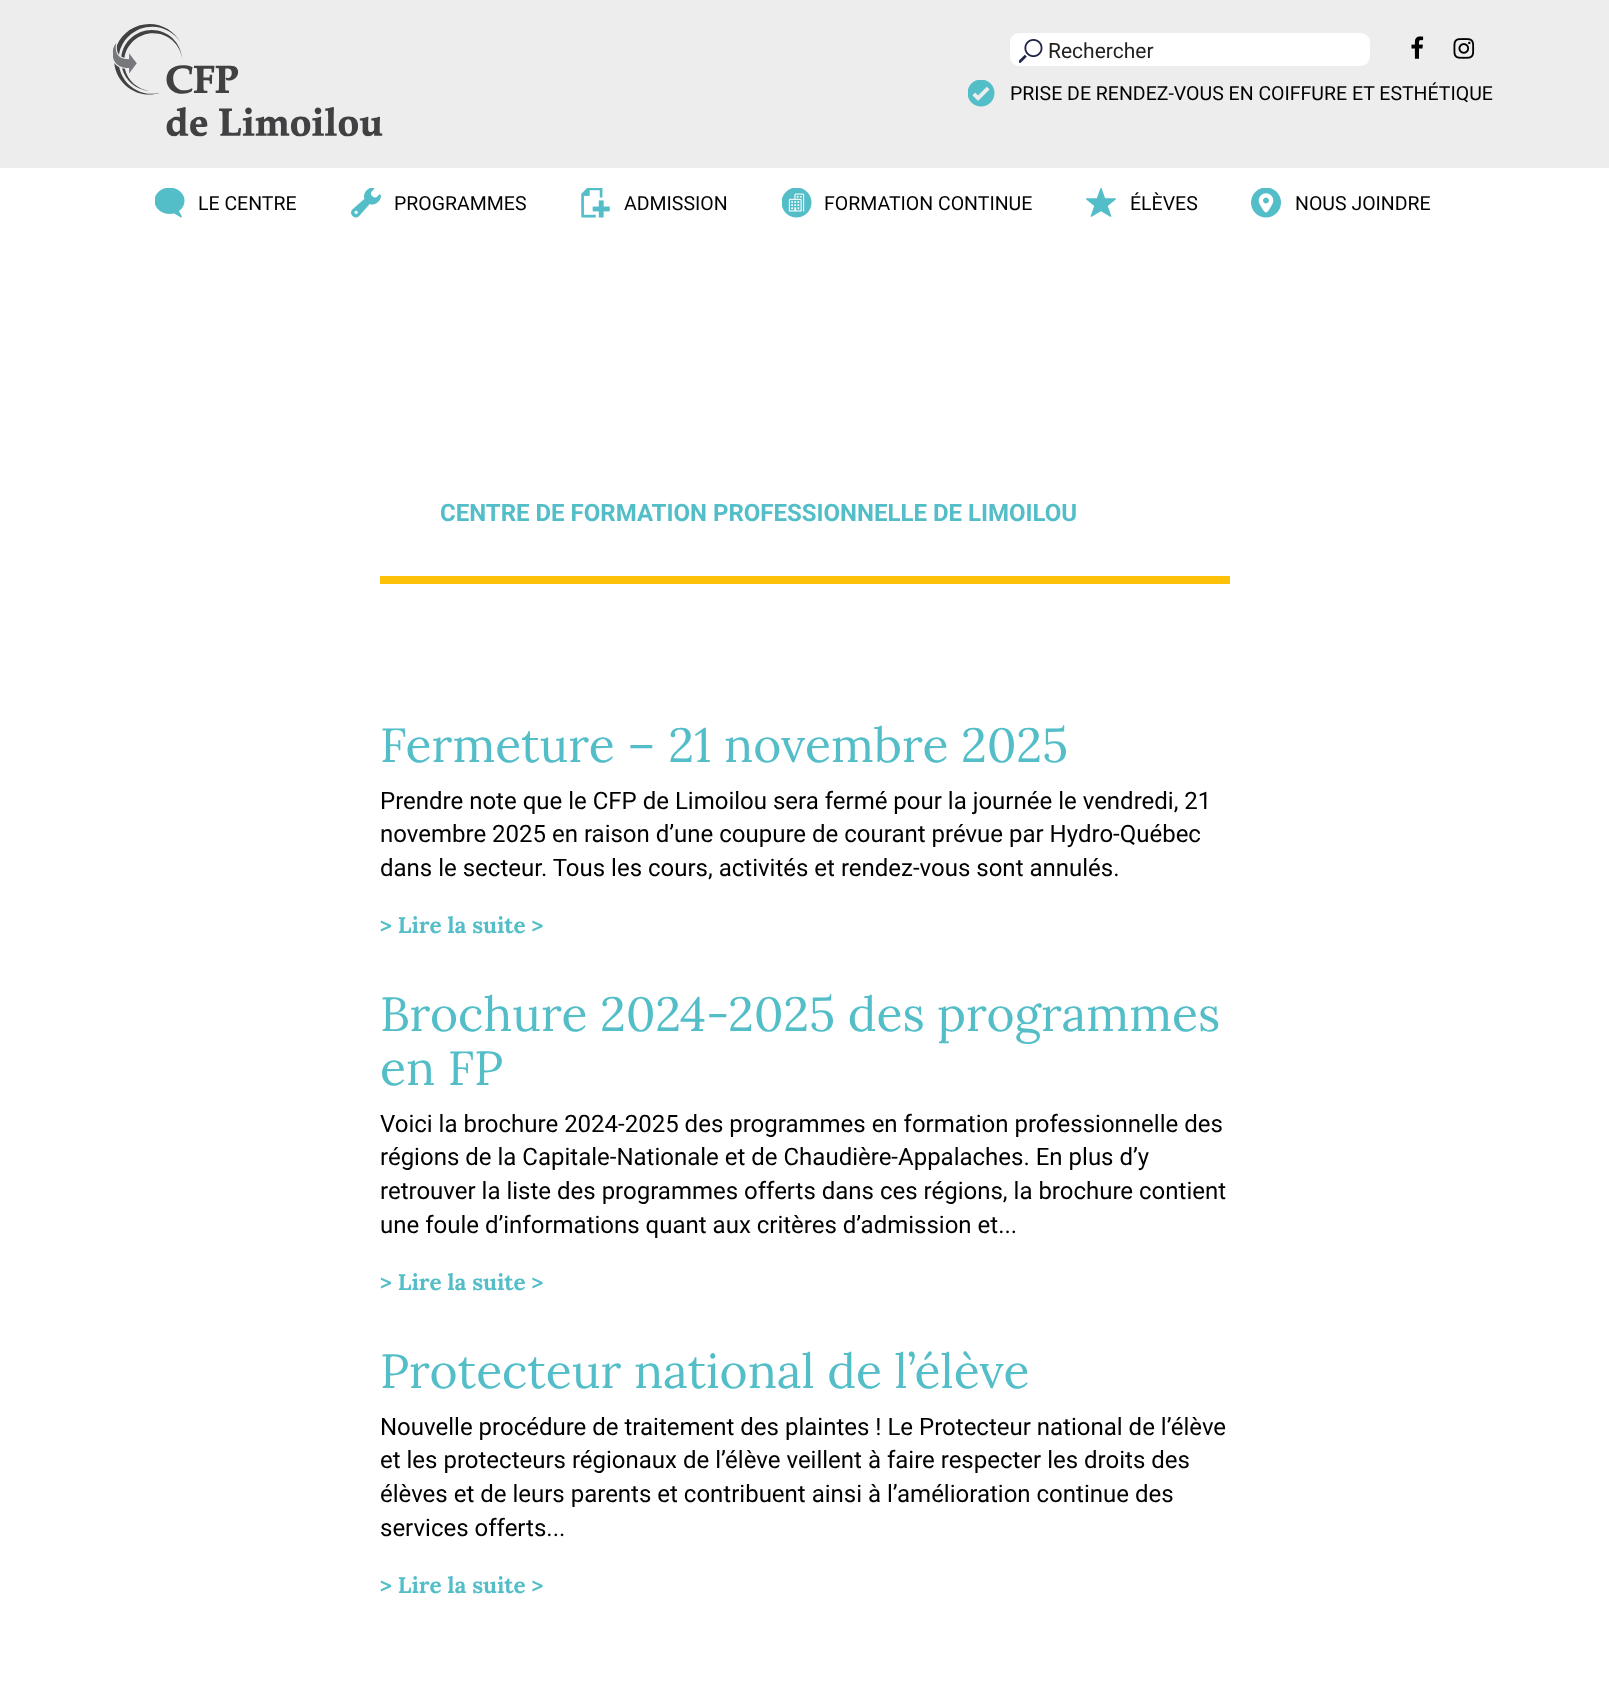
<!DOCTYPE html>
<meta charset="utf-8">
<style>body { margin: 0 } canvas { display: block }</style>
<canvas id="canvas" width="1609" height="1701"></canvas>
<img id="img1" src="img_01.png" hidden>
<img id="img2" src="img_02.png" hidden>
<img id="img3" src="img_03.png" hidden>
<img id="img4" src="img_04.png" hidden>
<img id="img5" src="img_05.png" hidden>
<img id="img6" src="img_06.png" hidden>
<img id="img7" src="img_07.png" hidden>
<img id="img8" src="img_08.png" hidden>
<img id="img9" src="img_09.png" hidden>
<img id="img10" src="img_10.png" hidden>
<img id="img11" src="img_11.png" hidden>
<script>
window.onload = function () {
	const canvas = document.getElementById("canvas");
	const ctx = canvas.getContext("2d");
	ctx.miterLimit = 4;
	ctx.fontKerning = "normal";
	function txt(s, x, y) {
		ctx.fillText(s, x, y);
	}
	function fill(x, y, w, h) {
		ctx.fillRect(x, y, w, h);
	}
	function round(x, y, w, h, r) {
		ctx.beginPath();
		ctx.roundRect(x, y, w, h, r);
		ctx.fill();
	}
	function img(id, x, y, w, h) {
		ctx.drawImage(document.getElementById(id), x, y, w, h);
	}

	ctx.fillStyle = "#FFFFFF";
	fill(0, 0, 1609, 1701);
	ctx.fillStyle = "#EDEDEE";
	fill(0, 0, 1609, 168);
	img("img1", 113, 24, 270, 113);
	ctx.fillStyle = "#FFFFFF";
	round(1010, 33, 360, 33, 9);
	img("img2", 1019, 39, 24, 24);
	img("img3", 1411, 36, 13, 23);
	img("img4", 1453, 38, 22, 21);
	img("img5", 968, 80, 27, 27);
	img("img6", 155, 188, 30, 30);
	img("img7", 351, 188, 30, 30);
	img("img8", 581, 188, 29, 30);
	img("img9", 782, 188, 30, 30);
	img("img10", 1086, 188, 30, 29);
	img("img11", 1251, 188, 30, 30);
	ctx.fillStyle = "#FDC109";
	fill(380, 576, 850, 8);
	ctx.font = "21px Roboto";
	ctx.fillStyle = "#222222";
	txt("Rechercher", 1048, 58);
	ctx.font = "19.5px Roboto";
	ctx.fillStyle = "#000000";
	txt("PRISE DE RENDEZ-VOUS EN COIFFURE ET ESTHÉTIQUE", 1010, 100);
	txt("LE CENTRE", 198, 210);
	txt("PROGRAMMES", 394, 210);
	txt("ADMISSION", 624, 210);
	txt("FORMATION CONTINUE", 824, 210);
	txt("ÉLÈVES", 1130, 210);
	txt("NOUS JOINDRE", 1295, 210);
	ctx.font = "bold 24px Roboto";
	ctx.fillStyle = "#54BEC8";
	txt("CENTRE DE FORMATION PROFESSIONNELLE DE LIMOILOU", 440, 521);
	ctx.font = "48px Lora";
	txt("Fermeture – 21 novembre 2025", 380, 762);
	ctx.font = "24px Roboto";
	ctx.fillStyle = "#000000";
	txt("Prendre note que le CFP de Limoilou sera fermé pour la journée le vendredi, 21", 380, 809);
	txt("novembre 2025 en raison d’une coupure de courant prévue par Hydro-Québec", 380, 842);
	txt("dans le secteur. Tous les cours, activités et rendez-vous sont annulés.", 380, 876);
	ctx.font = "bold 22.5px Lora";
	ctx.fillStyle = "#54BEC8";
	txt("> Lire la suite >", 380, 933);
	ctx.font = "48px Lora";
	txt("Brochure 2024-2025 des programmes", 380, 1031);
	txt("en FP", 380, 1085);
	ctx.font = "24px Roboto";
	ctx.fillStyle = "#000000";
	txt("Voici la brochure 2024-2025 des programmes en formation professionnelle des", 380, 1132);
	txt("régions de la Capitale-Nationale et de Chaudière-Appalaches. En plus d’y", 380, 1165);
	txt("retrouver la liste des programmes offerts dans ces régions, la brochure contient", 380, 1199);
	txt("une foule d’informations quant aux critères d’admission et...", 380, 1233);
	ctx.font = "bold 22.5px Lora";
	ctx.fillStyle = "#54BEC8";
	txt("> Lire la suite >", 380, 1290);
	ctx.font = "48px Lora";
	txt("Protecteur national de l’élève", 380, 1388);
	ctx.font = "24px Roboto";
	ctx.fillStyle = "#000000";
	txt("Nouvelle procédure de traitement des plaintes ! Le Protecteur national de l’élève", 380, 1435);
	txt("et les protecteurs régionaux de l’élève veillent à faire respecter les droits des", 380, 1468);
	txt("élèves et de leurs parents et contribuent ainsi à l’amélioration continue des", 380, 1502);
	txt("services offerts...", 380, 1536);
	ctx.font = "bold 22.5px Lora";
	ctx.fillStyle = "#54BEC8";
	txt("> Lire la suite >", 380, 1593);
};
</script>
